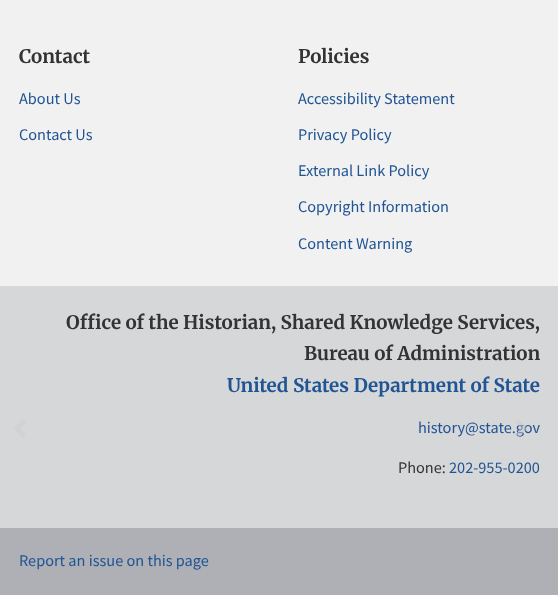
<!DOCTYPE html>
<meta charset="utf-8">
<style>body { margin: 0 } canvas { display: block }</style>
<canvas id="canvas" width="558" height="595"></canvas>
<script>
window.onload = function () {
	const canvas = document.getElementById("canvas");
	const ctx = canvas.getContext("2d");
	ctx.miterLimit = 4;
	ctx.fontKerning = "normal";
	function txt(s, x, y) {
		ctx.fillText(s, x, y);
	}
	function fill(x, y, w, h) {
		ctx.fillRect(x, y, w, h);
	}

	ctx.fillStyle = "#F1F1F1";
	fill(0, 0, 558, 595);
	ctx.fillStyle = "#D6D7D9";
	fill(0, 286, 558, 242);
	ctx.fillStyle = "#AEB0B5";
	fill(0, 528, 558, 67);
	ctx.fillStyle = "#D1D2D3";
	ctx.beginPath();
	ctx.moveTo(26, 422.5);
	ctx.lineTo(20, 428.5);
	ctx.lineTo(26, 434.5);
	ctx.lineTo(22.5, 437.5);
	ctx.lineTo(13.5, 428.5);
	ctx.lineTo(22.5, 419);
	ctx.closePath();
	ctx.fill();
	ctx.font = "bold 18.75px Merriweather";
	ctx.fillStyle = "#333333";
	txt("Contact", 19, 63);
	ctx.font = "16.25px Source Sans Pro";
	ctx.fillStyle = "#205493";
	txt("About Us", 19, 104);
	txt("Contact Us", 19, 140);
	ctx.font = "bold 18.75px Merriweather";
	ctx.fillStyle = "#333333";
	txt("Policies", 298, 63);
	ctx.font = "16.25px Source Sans Pro";
	ctx.fillStyle = "#205493";
	txt("Accessibility Statement", 298, 104);
	txt("Privacy Policy", 298, 140);
	txt("External Link Policy", 298, 176);
	txt("Copyright Information", 298, 212);
	txt("Content Warning", 298, 249);
	ctx.font = "bold 18.75px Merriweather";
	ctx.fillStyle = "#333333";
	txt("Office of the Historian, Shared Knowledge Services,", 66, 329);
	txt("Bureau of Administration", 304, 360);
	ctx.fillStyle = "#205493";
	txt("United States Department of State", 227, 392);
	ctx.font = "16.25px Source Sans Pro";
	txt("history@state.gov", 418, 433);
	ctx.fillStyle = "#333333";
	txt("Phone:", 398, 473);
	ctx.fillStyle = "#205493";
	txt("202-955-0200", 449, 473);
	txt("Report an issue on this page", 19, 566);
	ctx.fillStyle = "rgba(204, 204, 204, 0.5)";
	ctx.beginPath();
	ctx.moveTo(527.5, 428.5);
	ctx.lineTo(518.5, 437.5);
	ctx.lineTo(515, 434.5);
	ctx.lineTo(521, 428.5);
	ctx.lineTo(515, 422.5);
	ctx.lineTo(518.5, 419);
	ctx.closePath();
	ctx.fill();
};
</script>
